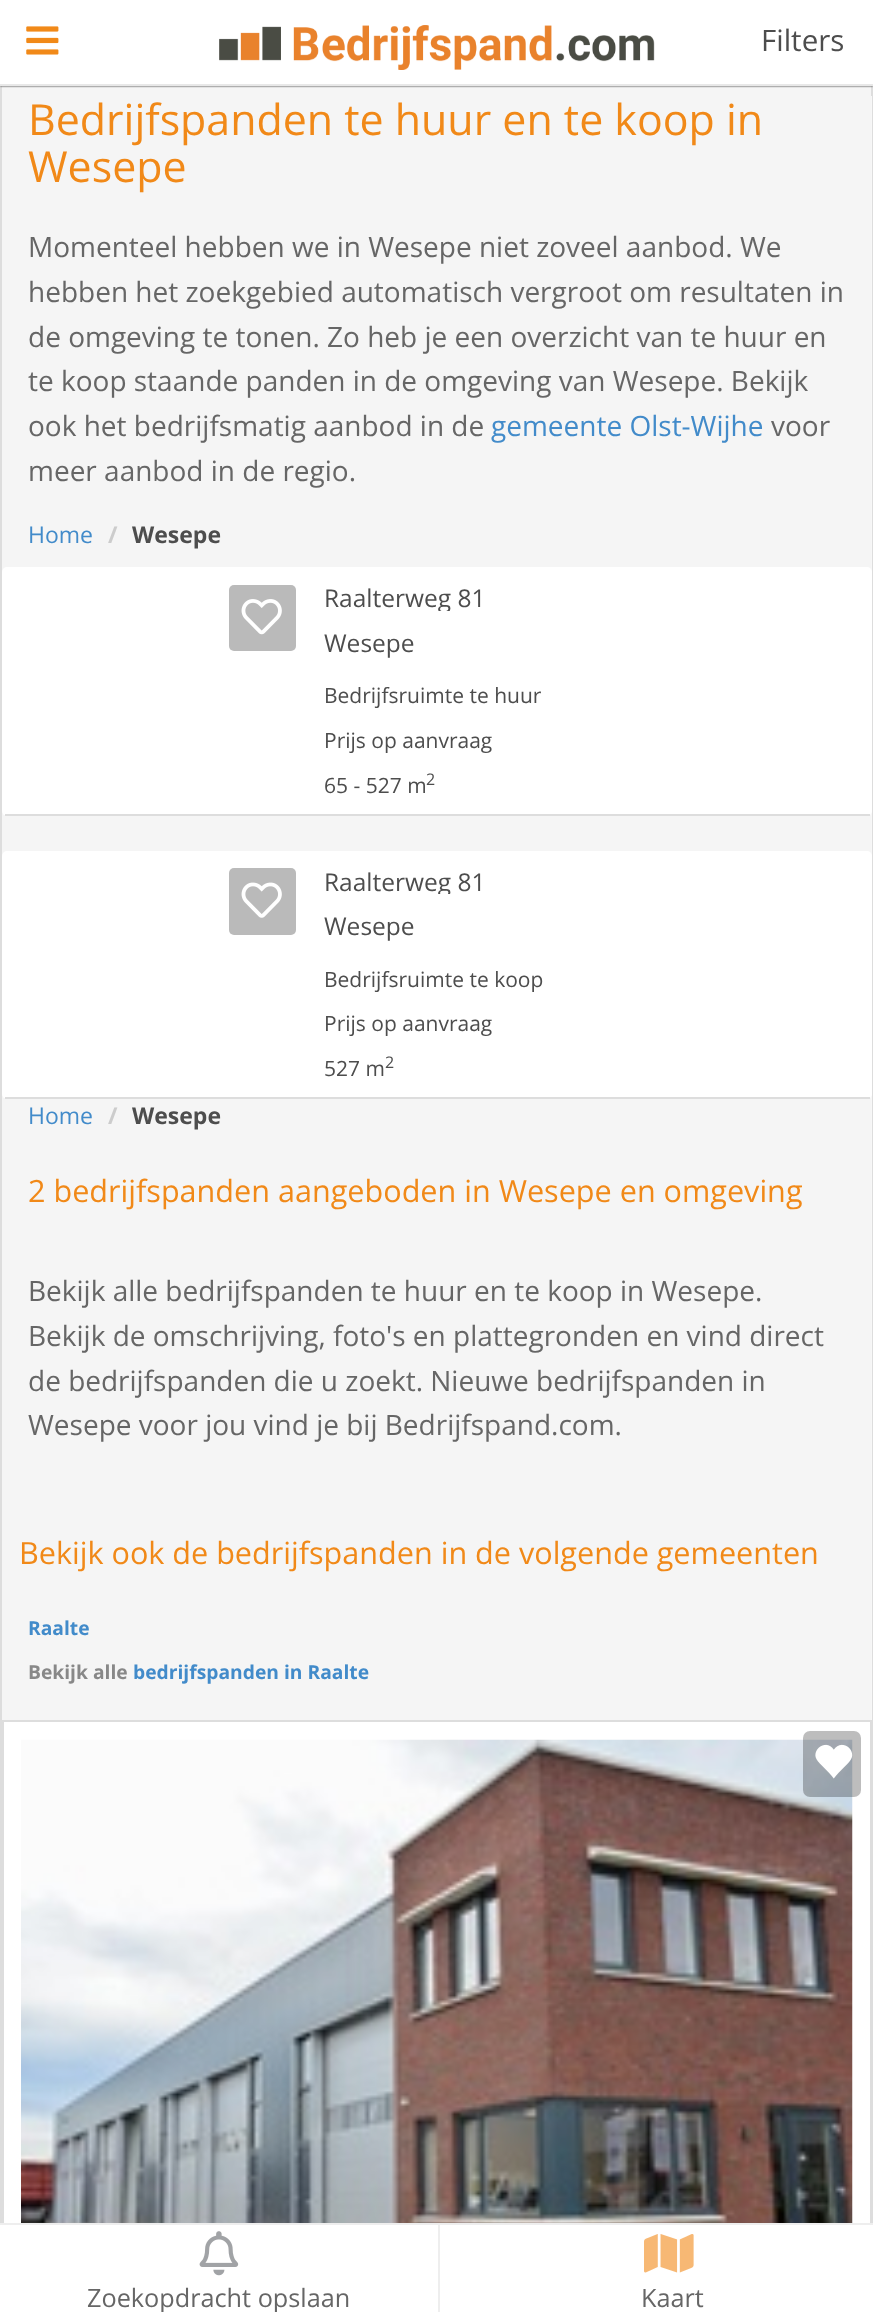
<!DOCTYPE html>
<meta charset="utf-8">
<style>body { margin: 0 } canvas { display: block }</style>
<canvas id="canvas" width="873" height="2312"></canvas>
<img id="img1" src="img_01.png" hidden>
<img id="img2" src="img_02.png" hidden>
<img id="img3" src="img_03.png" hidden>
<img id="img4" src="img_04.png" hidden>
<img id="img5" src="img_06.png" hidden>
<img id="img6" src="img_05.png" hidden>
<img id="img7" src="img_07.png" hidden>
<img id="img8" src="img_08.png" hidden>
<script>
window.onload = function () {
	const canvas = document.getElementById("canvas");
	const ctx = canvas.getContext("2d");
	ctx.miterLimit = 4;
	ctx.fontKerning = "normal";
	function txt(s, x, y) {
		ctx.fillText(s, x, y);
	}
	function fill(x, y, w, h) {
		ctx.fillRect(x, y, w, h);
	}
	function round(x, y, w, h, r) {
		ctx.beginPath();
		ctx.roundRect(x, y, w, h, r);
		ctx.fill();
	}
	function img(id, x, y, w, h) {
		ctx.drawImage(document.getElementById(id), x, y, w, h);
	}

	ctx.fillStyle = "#F5F5F5";
	fill(0, 0, 873, 2312);
	ctx.strokeStyle = "#DDDDDD";
	ctx.lineWidth = 2;
	ctx.strokeRect(1, -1, 871, 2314);
	ctx.fillStyle = "#222222";
	ctx.filter = "blur(1px)";
	ctx.beginPath();
	ctx.rect(0, 0, 873, 86);
	ctx.fill();
	ctx.filter = "none";
	ctx.fillStyle = "#FFFFFF";
	fill(0, 0, 873, 84);
	ctx.fillStyle = "#E8E8E8";
	fill(0, 84, 873, 2);
	img("img1", 26, 26, 33, 29);
	img("img2", 219, 25, 436, 45);
	ctx.fillStyle = "#F7F7F7";
	fill(871, 96, 1, 1624);
	ctx.fillStyle = "#FFFFFF";
	round(2, 567, 870, 249, 5);
	ctx.fillStyle = "#DDDDDD";
	fill(5, 814, 865, 2);
	ctx.fillStyle = "#BABABA";
	round(229, 585, 67, 66, 5);
	img("img3", 241, 599, 41, 36);
	ctx.fillStyle = "#FFFFFF";
	round(2, 851, 870, 248, 5);
	ctx.fillStyle = "#DDDDDD";
	fill(5, 1097, 865, 2);
	ctx.fillStyle = "#BABABA";
	round(229, 868, 67, 67, 5);
	img("img4", 241, 882, 41, 36);
	ctx.fillStyle = "#FFFFFF";
	fill(4, 1722, 866, 501);
	ctx.strokeRect(3, 1721, 868, 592);
	img("img5", 21, 1739, 832, 484);
	ctx.fillStyle = "rgba(0, 0, 0, 0.26)";
	round(803, 1731, 58, 66, 7);
	img("img6", 815, 1744, 38, 35);
	ctx.fillStyle = "#FFFFFF";
	fill(0, 2225, 873, 87);
	ctx.fillStyle = "#EEEEEE";
	fill(0, 2223, 873, 2);
	img("img7", 199, 2231, 40, 45);
	fill(438, 2224, 2, 88);
	img("img8", 644, 2234, 50, 39);
	ctx.font = "29.5px Open Sans";
	ctx.fillStyle = "#4D4D4D";
	txt("Filters", 761, 51);
	ctx.font = "42.9px Open Sans";
	ctx.fillStyle = "#F18918";
	txt("Bedrijfspanden te huur en te koop in", 28, 135);
	txt("Wesepe", 28, 182);
	ctx.font = "28px Open Sans";
	ctx.fillStyle = "#666666";
	txt("Momenteel hebben we in Wesepe niet zoveel aanbod. We", 28, 257);
	txt("hebben het zoekgebied automatisch vergroot om resultaten in", 28, 302);
	txt("de omgeving te tonen. Zo heb je een overzicht van te huur en", 28, 347);
	txt("te koop staande panden in de omgeving van Wesepe. Bekijk", 28, 391);
	txt("ook het bedrijfsmatig aanbod in de", 28, 436);
	ctx.fillStyle = "#428BCA";
	txt("gemeente Olst-Wijhe", 491, 436);
	ctx.fillStyle = "#666666";
	txt("voor", 771, 436);
	txt("meer aanbod in de regio.", 28, 481);
	ctx.font = "23px Open Sans";
	ctx.fillStyle = "#428BCA";
	txt("Home", 28, 543);
	ctx.font = "bold 23px Open Sans";
	ctx.fillStyle = "#CCCCCC";
	txt("/", 108, 543);
	ctx.fillStyle = "#4D4D4D";
	txt("Wesepe", 132, 543);
	ctx.save();
	ctx.beginPath();
	ctx.rect(324, 585, 264, 26);
	ctx.clip();
	ctx.font = "24.5px Open Sans";
	txt("Raalterweg 81", 324, 607);
	ctx.restore();
	ctx.font = "24.5px Open Sans";
	txt("Wesepe", 324, 652);
	ctx.font = "21px Open Sans";
	txt("Bedrijfsruimte te huur", 324, 703);
	txt("Prijs op aanvraag", 324, 748);
	txt("65 - 527 m", 324, 793);
	ctx.font = "16px Open Sans";
	txt("2", 426, 785);
	ctx.save();
	ctx.beginPath();
	ctx.rect(324, 868, 264, 26);
	ctx.clip();
	ctx.font = "24.5px Open Sans";
	txt("Raalterweg 81", 324, 891);
	ctx.restore();
	ctx.font = "24.5px Open Sans";
	txt("Wesepe", 324, 935);
	ctx.font = "21px Open Sans";
	txt("Bedrijfsruimte te koop", 324, 987);
	txt("Prijs op aanvraag", 324, 1031);
	txt("527 m", 324, 1076);
	ctx.font = "16px Open Sans";
	txt("2", 385, 1068);
	ctx.font = "23px Open Sans";
	ctx.fillStyle = "#428BCA";
	txt("Home", 28, 1124);
	ctx.font = "bold 23px Open Sans";
	ctx.fillStyle = "#CCCCCC";
	txt("/", 108, 1124);
	ctx.fillStyle = "#4D4D4D";
	txt("Wesepe", 132, 1124);
	ctx.font = "30.6px Open Sans";
	ctx.fillStyle = "#F18918";
	txt("2 bedrijfspanden aangeboden in Wesepe en omgeving", 28, 1202);
	ctx.font = "28px Open Sans";
	ctx.fillStyle = "#666666";
	txt("Bekijk alle bedrijfspanden te huur en te koop in Wesepe.", 28, 1301);
	txt("Bekijk de omschrijving, foto's en plattegronden en vind direct", 28, 1346);
	txt("de bedrijfspanden die u zoekt. Nieuwe bedrijfspanden in", 28, 1391);
	txt("Wesepe voor jou vind je bij Bedrijfspand.com.", 28, 1435);
	ctx.font = "30.6px Open Sans";
	ctx.fillStyle = "#F18918";
	txt("Bekijk ook de bedrijfspanden in de volgende gemeenten", 19, 1564);
	ctx.font = "bold 19.25px Open Sans";
	ctx.fillStyle = "#428BCA";
	txt("Raalte", 28, 1635);
	ctx.fillStyle = "#888888";
	txt("Bekijk alle", 28, 1679);
	ctx.fillStyle = "#428BCA";
	txt("bedrijfspanden in Raalte", 133, 1679);
	ctx.font = "25.25px Open Sans";
	ctx.fillStyle = "#666666";
	txt("Zoekopdracht opslaan", 87, 2307);
	txt("Kaart", 641, 2307);
};
</script>
